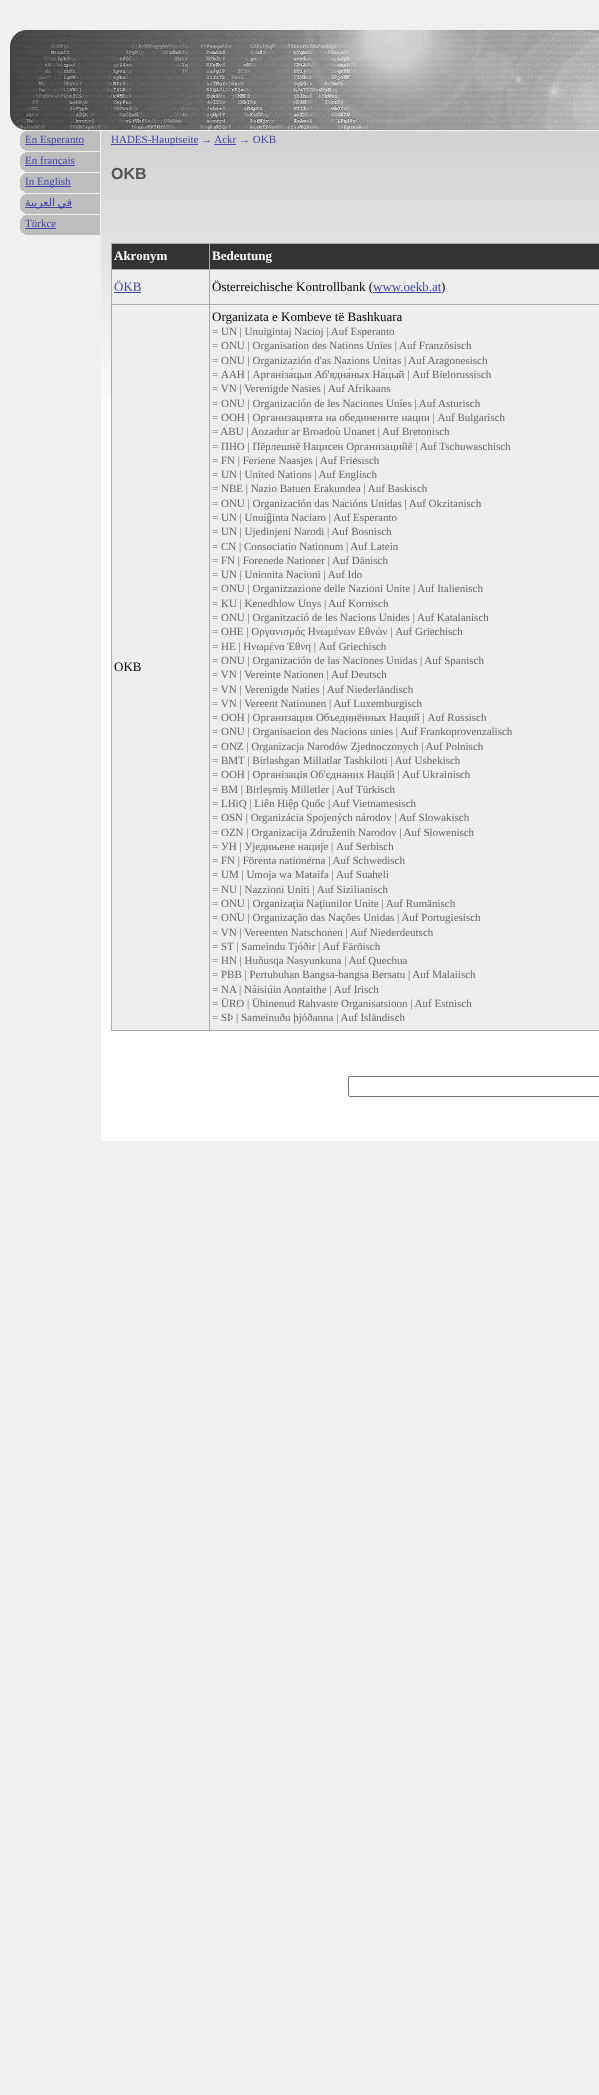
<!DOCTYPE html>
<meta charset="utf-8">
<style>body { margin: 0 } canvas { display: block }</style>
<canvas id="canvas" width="599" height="2095"></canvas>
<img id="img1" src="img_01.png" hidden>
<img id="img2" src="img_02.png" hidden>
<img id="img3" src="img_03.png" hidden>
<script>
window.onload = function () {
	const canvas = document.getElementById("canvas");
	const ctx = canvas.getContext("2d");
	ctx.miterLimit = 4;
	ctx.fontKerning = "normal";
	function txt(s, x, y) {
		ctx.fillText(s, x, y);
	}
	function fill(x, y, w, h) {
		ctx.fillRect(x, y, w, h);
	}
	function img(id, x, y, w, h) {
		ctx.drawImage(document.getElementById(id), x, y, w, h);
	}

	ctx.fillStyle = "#F0F0F0";
	fill(0, 0, 599, 2095);
	img("img1", 10, 30, 589, 100);
	img("img2", 20, 131, 80, 20);
	ctx.fillStyle = "#4444AA";
	fill(25, 144, 59, 1);
	img("img2", 20, 152, 80, 20);
	fill(25, 165, 50, 1);
	img("img2", 20, 173, 80, 20);
	fill(25, 186, 46, 1);
	img("img2", 20, 194, 80, 20);
	fill(25, 207, 47, 1);
	img("img2", 20, 215, 80, 20);
	fill(25, 228, 31, 1);
	ctx.fillStyle = "#FFFFFF";
	fill(101, 399, 498, 742);
	img("img3", 101, 131, 498, 268);
	ctx.fillStyle = "#4444AA";
	fill(111, 144, 87, 1);
	fill(214, 144, 22, 1);
	ctx.fillStyle = "#EEEEEE";
	fill(112, 270, 487, 760);
	ctx.fillStyle = "#333333";
	fill(112, 244, 97, 25);
	ctx.fillStyle = "#AAAAAA";
	fill(209, 243, 390, 1);
	fill(209, 269, 390, 1);
	fill(209, 304, 390, 1);
	fill(209, 1030, 390, 1);
	fill(209, 304, 1, 727);
	fill(111, 304, 99, 1);
	fill(209, 269, 1, 36);
	fill(111, 269, 99, 1);
	fill(209, 243, 1, 27);
	fill(111, 243, 99, 1);
	fill(111, 1030, 99, 1);
	fill(111, 304, 1, 727);
	fill(111, 269, 1, 36);
	fill(111, 243, 1, 27);
	ctx.fillStyle = "#333333";
	fill(210, 244, 389, 25);
	ctx.fillStyle = "#4444AA";
	fill(114, 292, 27, 1);
	fill(373, 292, 68, 1);
	ctx.beginPath();
	ctx.roundRect(348.5, 1076.5, 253, 20, 1.5);
	ctx.strokeStyle = "#767676";
	ctx.stroke();
	ctx.font = "11px Liberation Serif";
	txt("En Esperanto", 25, 143);
	txt("En français", 25, 164);
	txt("In English", 25, 185);
	ctx.wordSpacing = "-1px";
	ctx.direction = "rtl";
	ctx.font = "11px DejaVu Sans";
	txt("في العربية", 72, 206);
	ctx.wordSpacing = "0px";
	ctx.direction = "ltr";
	ctx.font = "11px Liberation Serif";
	txt("Türkce", 25, 227);
	txt("HADES-Hauptseite → Ackr → OKB", 111, 143);
	ctx.font = "bold 16px Liberation Sans";
	ctx.fillStyle = "#555555";
	txt("OKB", 111, 179);
	ctx.font = "bold 13px Liberation Serif";
	ctx.fillStyle = "#FFFFFF";
	txt("Akronym", 114, 260);
	txt("Bedeutung", 212, 260);
	ctx.font = "13px Liberation Serif";
	ctx.fillStyle = "#4444AA";
	txt("ÖKB", 114, 291);
	ctx.fillStyle = "#000000";
	txt("Österreichische Kontrollbank (", 212, 291);
	ctx.fillStyle = "#4444AA";
	txt("www.oekb.at", 373, 291);
	ctx.fillStyle = "#000000";
	txt(")", 441, 291);
	txt("OKB", 114, 671);
	txt("Organizata e Kombeve të Bashkuara", 212, 321);
	ctx.font = "11px Liberation Serif";
	ctx.fillStyle = "#666666";
	txt("= UN | Unuigintaj Nacioj | Auf Esperanto", 212, 335);
	txt("= ONU | Organisation des Nations Unies | Auf Französisch", 212, 349);
	txt("= ONU | Organizazión d'as Nazions Unitas | Auf Aragonesisch", 212, 364);
	txt("= ААН | Арганіза́цыя Аб'ядна́ных На́цый | Auf Bielorussisch", 212, 378);
	txt("= VN | Verenigde Nasies | Auf Afrikaans", 212, 392);
	txt("= ONU | Organización de les Naciones Uníes | Auf Asturisch", 212, 407);
	txt("= OOH | Организацията на обединените нации | Auf Bulgarisch", 212, 421);
	txt("= ABU | Aozadur ar Broadoù Unanet | Auf Bretonisch", 212, 435);
	txt("= ПНО | Пĕрлешнĕ Нацисен Организацийĕ | Auf Tschuwaschisch", 212, 450);
	txt("= FN | Feriene Naasjes | Auf Friesisch", 212, 464);
	txt("= UN | United Nations | Auf Englisch", 212, 478);
	txt("= NBE | Nazio Batuen Erakundea | Auf Baskisch", 212, 492);
	txt("= ONU | Organización das Nacións Unidas | Auf Okzitanisch", 212, 507);
	txt("= UN | Unuiĝinta Naciaro | Auf Esperanto", 212, 521);
	txt("= UN | Ujedinjeni Narodi | Auf Bosnisch", 212, 535);
	txt("= CN | Consociatio Nationum | Auf Latein", 212, 550);
	txt("= FN | Forenede Nationer | Auf Dänisch", 212, 564);
	txt("= UN | Unionita Nacioni | Auf Ido", 212, 578);
	txt("= ONU | Organizzazione delle Nazioni Unite | Auf Italienisch", 212, 592);
	txt("= KU | Kenedhlow Unys | Auf Kornisch", 212, 607);
	txt("= ONU | Organització de les Nacions Unides | Auf Katalanisch", 212, 621);
	txt("= ΟΗΕ | Οργανισμός Ηνωμένων Εθνών | Auf Griechisch", 212, 635);
	txt("= ΗΕ | Ηνωμένα Έθνη | Auf Griechisch", 212, 650);
	txt("= ONU | Organización de las Naciones Unidas | Auf Spanisch", 212, 664);
	txt("= VN | Vereinte Nationen | Auf Deutsch", 212, 678);
	txt("= VN | Verenigde Naties | Auf Niederländisch", 212, 693);
	txt("= VN | Vereent Natiounen | Auf Luxemburgisch", 212, 707);
	txt("= ООН | Организация Oбъединённых Hаций | Auf Russisch", 212, 721);
	txt("= ONU | Organisacion des Nacions unies | Auf Frankoprovenzalisch", 212, 735);
	txt("= ONZ | Organizacja Narodów Zjednoczonych | Auf Polnisch", 212, 750);
	txt("= BMT | Birlashgan Millatlar Tashkiloti | Auf Usbekisch", 212, 764);
	txt("= ООН | Організація Об'єднаних Націй | Auf Ukrainisch", 212, 778);
	txt("= BM | Birleşmiş Milletler | Auf Türkisch", 212, 793);
	txt("= LHiQ | Liên Hiệp Quốc | Auf Vietnamesisch", 212, 807);
	txt("= OSN | Organizácia Spojených národov | Auf Slowakisch", 212, 821);
	txt("= OZN | Organizacija Združenih Narodov | Auf Slowenisch", 212, 836);
	txt("= УН | Уједињене нације | Auf Serbisch", 212, 850);
	txt("= FN | Förenta nationerna | Auf Schwedisch", 212, 864);
	txt("= UM | Umoja wa Mataifa | Auf Suaheli", 212, 878);
	txt("= NU | Nazzioni Uniti | Auf Sizilianisch", 212, 893);
	txt("= ONU | Organizaţia Naţiunilor Unite | Auf Rumänisch", 212, 907);
	txt("= ONU | Organização das Nações Unidas | Auf Portugiesisch", 212, 921);
	txt("= VN | Vereenten Natschonen | Auf Niederdeutsch", 212, 936);
	txt("= ST | Sameindu Tjóðir | Auf Färöisch", 212, 950);
	txt("= HN | Huñusqa Nasyunkuna | Auf Quechua", 212, 964);
	txt("= PBB | Pertubuhan Bangsa-bangsa Bersatu | Auf Malaiisch", 212, 978);
	txt("= NA | Náisiúin Aontaithe | Auf Irisch", 212, 993);
	txt("= ÜRO | Ühinenud Rahvaste Organisatsioon | Auf Estnisch", 212, 1007);
	txt("= SÞ | Sameinuðu þjóðanna | Auf Isländisch", 212, 1021);
};
</script>
